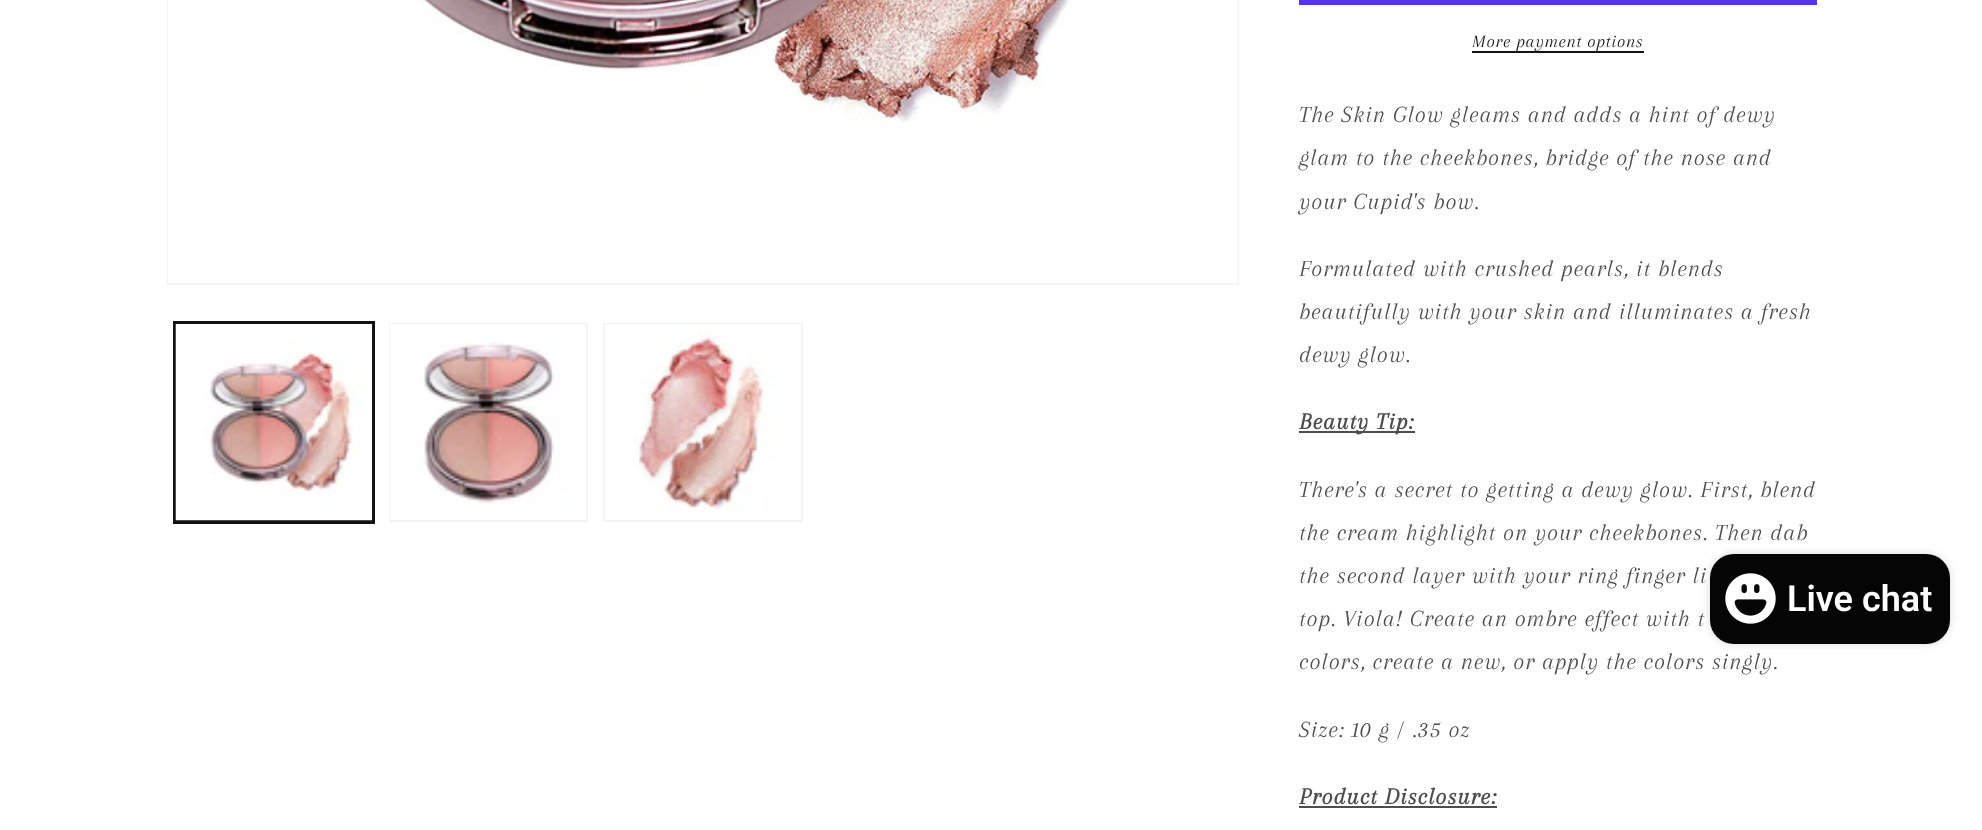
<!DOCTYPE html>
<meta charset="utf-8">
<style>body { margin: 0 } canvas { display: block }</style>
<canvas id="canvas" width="1982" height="830"></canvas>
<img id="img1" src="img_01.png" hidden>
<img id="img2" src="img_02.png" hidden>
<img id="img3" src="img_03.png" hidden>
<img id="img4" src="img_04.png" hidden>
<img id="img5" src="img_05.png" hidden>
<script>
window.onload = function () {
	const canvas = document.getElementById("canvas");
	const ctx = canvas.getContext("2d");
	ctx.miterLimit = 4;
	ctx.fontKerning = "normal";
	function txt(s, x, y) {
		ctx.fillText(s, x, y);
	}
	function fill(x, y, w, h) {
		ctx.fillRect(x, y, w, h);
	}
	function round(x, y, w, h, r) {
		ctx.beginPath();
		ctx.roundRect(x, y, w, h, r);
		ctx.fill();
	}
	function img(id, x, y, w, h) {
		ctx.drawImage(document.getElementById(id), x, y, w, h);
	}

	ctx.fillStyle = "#FFFFFF";
	fill(0, 0, 1982, 830);
	ctx.strokeStyle = "#F3F3F3";
	ctx.lineWidth = 2;
	ctx.strokeRect(168, -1, 1070, 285);
	img("img1", 168, 0, 1070, 284);
	ctx.strokeStyle = "#121212";
	ctx.strokeRect(174, 322, 200, 201);
	ctx.strokeRect(175, 324, 198, 197);
	img("img2", 175, 324, 197, 197);
	ctx.strokeStyle = "#F3F3F3";
	ctx.strokeRect(390, 324, 197, 197);
	img("img3", 390, 324, 196, 196);
	ctx.strokeRect(604, 324, 198, 197);
	img("img4", 605, 324, 196, 187);
	ctx.fillStyle = "#5433EB";
	fill(1299, 0, 518, 5);
	ctx.fillStyle = "#121212";
	fill(1472, 51, 172, 2);
	ctx.fillStyle = "#4D4D4D";
	fill(1299, 431, 116, 2);
	fill(1299, 806, 198, 2);
	ctx.fillStyle = "rgba(0, 0, 0, 0.15)";
	ctx.filter = "blur(4px)";
	ctx.beginPath();
	ctx.roundRect(1710, 554, 240, 90, 24);
	ctx.fill();
	ctx.filter = "none";
	ctx.fillStyle = "#050505";
	round(1710, 554, 240, 90, 24);
	img("img5", 1725, 573, 51, 51);
	ctx.letterSpacing = "0.75px";
	ctx.font = "italic 18px Arapey";
	ctx.fillStyle = "#121212";
	txt("More payment options", 1472, 47);
	ctx.letterSpacing = "0.9px";
	ctx.font = "italic 24px Arapey";
	ctx.fillStyle = "#4D4D4D";
	txt("The Skin Glow gleams and adds a hint of dewy", 1299, 122);
	txt("glam to the cheekbones, bridge of the nose and", 1299, 165);
	txt("your Cupid's bow.", 1299, 209);
	txt("Formulated with crushed pearls, it blends", 1299, 276);
	txt("beautifully with your skin and illuminates a fresh", 1299, 319);
	txt("dewy glow.", 1299, 362);
	ctx.font = "italic bold 24px Arapey";
	txt("Beauty Tip:", 1299, 429);
	ctx.font = "italic 24px Arapey";
	txt("There's a secret to getting a dewy glow. First, blend", 1299, 497);
	txt("the cream highlight on your cheekbones. Then dab", 1299, 540);
	txt("the second layer with your ring finger li", 1299, 583);
	txt("top. Viola! Create an ombre effect with t", 1299, 626);
	txt("colors, create a new, or apply the colors singly.", 1299, 669);
	txt("Size: 10 g / .35 oz", 1299, 737);
	ctx.font = "italic bold 24px Arapey";
	txt("Product Disclosure:", 1299, 804);
	ctx.letterSpacing = "0px";
	ctx.font = "600 36px Roboto";
	ctx.fillStyle = "#FFFFFF";
	txt("Live chat", 1787, 611);
};
</script>
